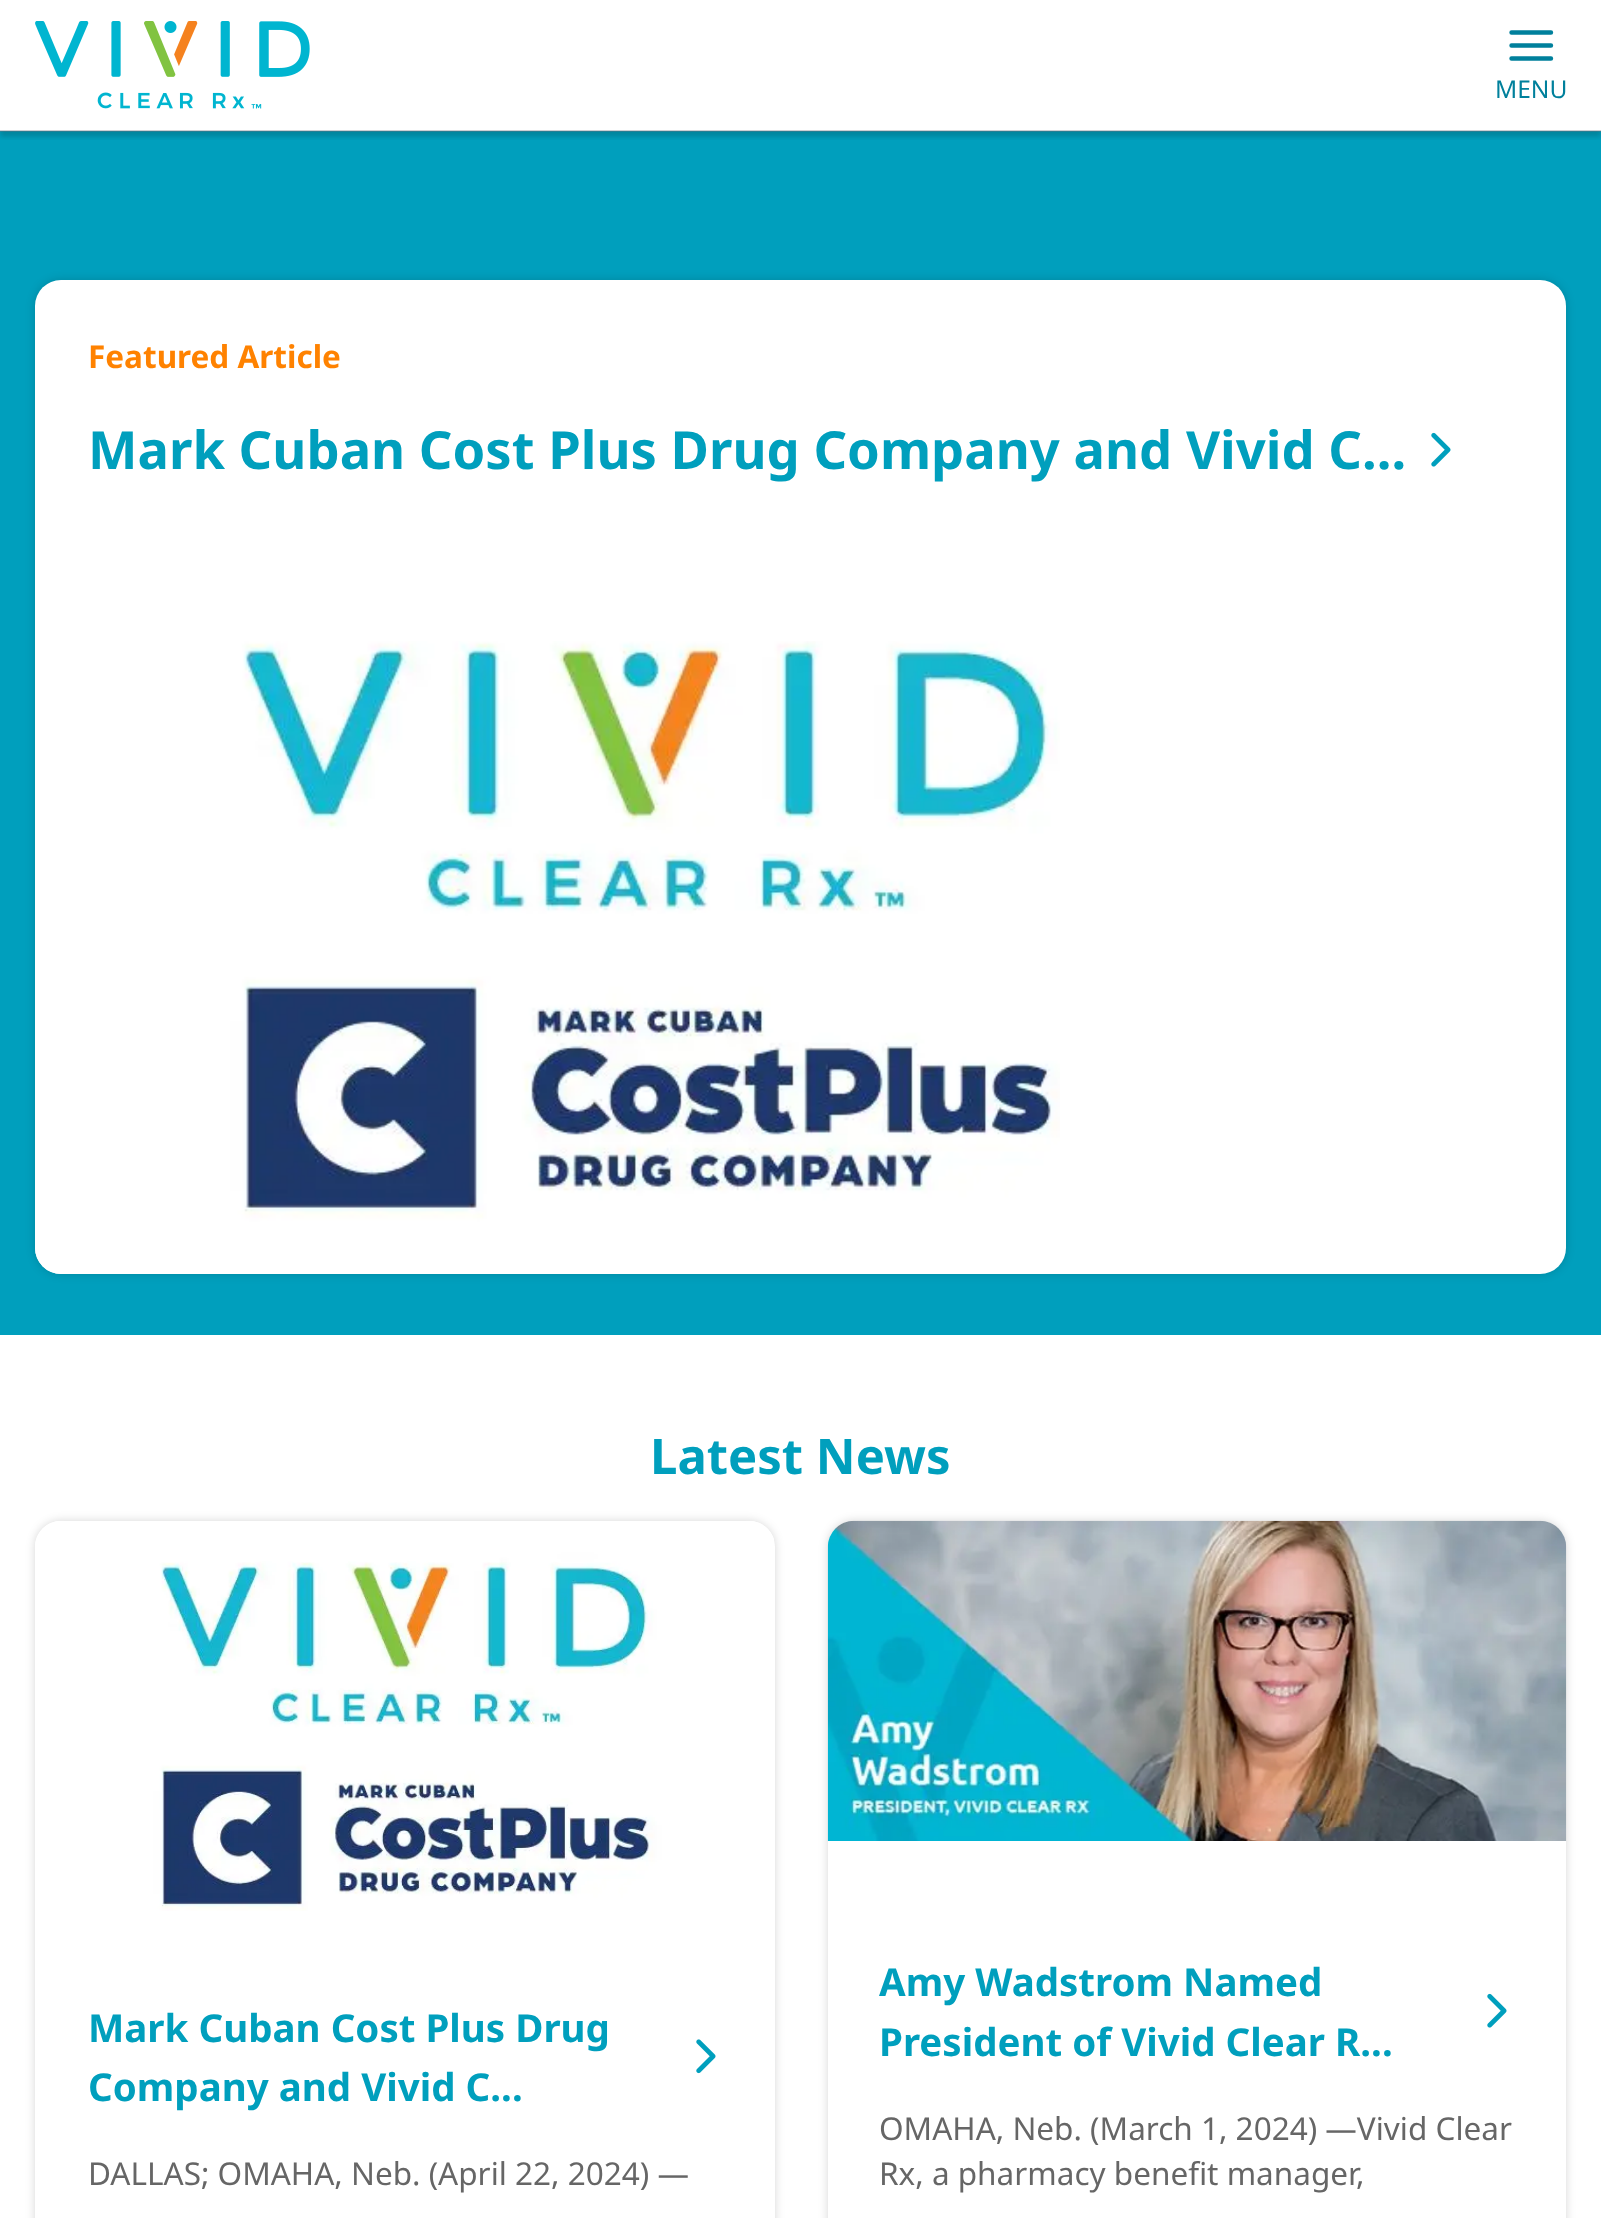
<!DOCTYPE html>
<meta charset="utf-8">
<style>body { margin: 0 } canvas { display: block }</style>
<canvas id="canvas" width="1601" height="2218"></canvas>
<img id="img1" src="img_01.png" hidden>
<img id="img2" src="img_02.png" hidden>
<img id="img3" src="img_03.png" hidden>
<img id="img4" src="img_04.png" hidden>
<img id="img5" src="img_05.png" hidden>
<img id="img6" src="img_06.png" hidden>
<script>
window.onload = function () {
	const canvas = document.getElementById("canvas");
	const ctx = canvas.getContext("2d");
	ctx.miterLimit = 4;
	ctx.fontKerning = "normal";
	function txt(s, x, y) {
		ctx.fillText(s, x, y);
	}
	function fill(x, y, w, h) {
		ctx.fillRect(x, y, w, h);
	}
	function round(x, y, w, h, r) {
		ctx.beginPath();
		ctx.roundRect(x, y, w, h, r);
		ctx.fill();
	}
	function img(id, x, y, w, h) {
		ctx.drawImage(document.getElementById(id), x, y, w, h);
	}

	ctx.fillStyle = "#FFFFFF";
	fill(0, 0, 1601, 2218);
	ctx.fillStyle = "#009FBD";
	fill(0, 131, 1601, 1204);
	ctx.save();
	ctx.beginPath();
	ctx.rect(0, 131, 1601, 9);
	ctx.clip();
	ctx.fillStyle = "rgba(0, 0, 0, 0.16)";
	ctx.filter = "blur(2.5px)";
	ctx.beginPath();
	ctx.rect(0, 5, 1601, 132);
	ctx.fill();
	ctx.filter = "none";
	ctx.restore();
	ctx.fillStyle = "rgba(113, 113, 122, 0.35)";
	fill(0, 130, 1601, 2);
	img("img1", 35, 21, 275, 88);
	ctx.beginPath();
	ctx.moveTo(1511.5, 45.5);
	ctx.lineTo(1551, 45.5);
	ctx.moveTo(1511.5, 32.5);
	ctx.lineTo(1551, 32.5);
	ctx.moveTo(1511.5, 58.5);
	ctx.lineTo(1551, 58.5);
	ctx.strokeStyle = "#00809C";
	ctx.lineWidth = 4.4;
	ctx.lineCap = "round";
	ctx.lineJoin = "round";
	ctx.stroke();
	ctx.fillStyle = "rgba(0, 0, 0, 0.16)";
	ctx.filter = "blur(5px)";
	ctx.beginPath();
	ctx.roundRect(35, 280, 1531, 994, 26);
	ctx.fill();
	ctx.filter = "none";
	ctx.fillStyle = "#FFFFFF";
	round(35, 280, 1531, 994, 26);
	img("img2", 1431, 432, 20, 35);
	img("img3", 35, 641, 1025, 633);
	ctx.save();
	ctx.beginPath();
	ctx.moveTo(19, 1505);
	ctx.lineTo(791, 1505);
	ctx.lineTo(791, 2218);
	ctx.lineTo(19, 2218);
	ctx.closePath();
	ctx.moveTo(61, 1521);
	ctx.lineTo(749, 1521);
	ctx.bezierCurveTo(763.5, 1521, 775, 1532.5, 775, 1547);
	ctx.lineTo(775, 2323);
	ctx.bezierCurveTo(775, 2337.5, 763.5, 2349, 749, 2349);
	ctx.lineTo(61, 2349);
	ctx.bezierCurveTo(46.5, 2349, 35, 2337.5, 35, 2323);
	ctx.lineTo(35, 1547);
	ctx.bezierCurveTo(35, 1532.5, 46.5, 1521, 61, 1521);
	ctx.closePath();
	ctx.clip("evenodd");
	ctx.fillStyle = "rgba(0, 0, 0, 0.16)";
	ctx.filter = "blur(5px)";
	ctx.beginPath();
	ctx.roundRect(35, 1521, 740, 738, 26);
	ctx.fill();
	ctx.filter = "none";
	ctx.restore();
	img("img4", 35, 1521, 739, 390);
	img("img5", 696, 2039, 20, 35);
	ctx.save();
	ctx.beginPath();
	ctx.moveTo(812, 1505);
	ctx.lineTo(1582, 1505);
	ctx.lineTo(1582, 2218);
	ctx.lineTo(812, 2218);
	ctx.closePath();
	ctx.moveTo(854, 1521);
	ctx.lineTo(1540, 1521);
	ctx.bezierCurveTo(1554.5, 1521, 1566, 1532.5, 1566, 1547);
	ctx.lineTo(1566, 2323);
	ctx.bezierCurveTo(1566, 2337.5, 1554.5, 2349, 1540, 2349);
	ctx.lineTo(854, 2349);
	ctx.bezierCurveTo(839.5, 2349, 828, 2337.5, 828, 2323);
	ctx.lineTo(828, 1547);
	ctx.bezierCurveTo(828, 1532.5, 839.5, 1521, 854, 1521);
	ctx.closePath();
	ctx.clip("evenodd");
	ctx.fillStyle = "rgba(0, 0, 0, 0.16)";
	ctx.filter = "blur(5px)";
	ctx.beginPath();
	ctx.roundRect(828, 1521, 738, 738, 26);
	ctx.fill();
	ctx.filter = "none";
	ctx.restore();
	img("img6", 827, 1520, 740, 321);
	img("img2", 1487, 1993, 20, 35);
	ctx.font = "24.5px Noto Sans";
	ctx.fillStyle = "#00809C";
	txt("MENU", 1495, 98);
	ctx.font = "bold 31.5px Noto Sans";
	ctx.fillStyle = "#FF8200";
	txt("Featured Article", 88, 368);
	ctx.font = "bold 52.5px Noto Sans";
	ctx.fillStyle = "#009FBD";
	txt("Mark Cuban Cost Plus Drug Company and Vivid C...", 88, 469);
	ctx.font = "bold 49px Noto Sans";
	txt("Latest News", 650, 1474);
	ctx.font = "bold 38.5px Noto Sans";
	txt("Mark Cuban Cost Plus Drug", 88, 2042);
	txt("Company and Vivid C...", 88, 2101);
	ctx.font = "31.5px Noto Sans";
	ctx.fillStyle = "#666666";
	txt("DALLAS; OMAHA, Neb. (April 22, 2024) —", 88, 2185);
	ctx.font = "bold 38.5px Noto Sans";
	ctx.fillStyle = "#009FBD";
	txt("Amy Wadstrom Named", 879, 1996);
	txt("President of Vivid Clear R...", 879, 2056);
	ctx.font = "31.5px Noto Sans";
	ctx.fillStyle = "#666666";
	txt("OMAHA, Neb. (March 1, 2024) —Vivid Clear", 879, 2140);
	txt("Rx, a pharmacy benefit manager,", 879, 2185);
};
</script>
